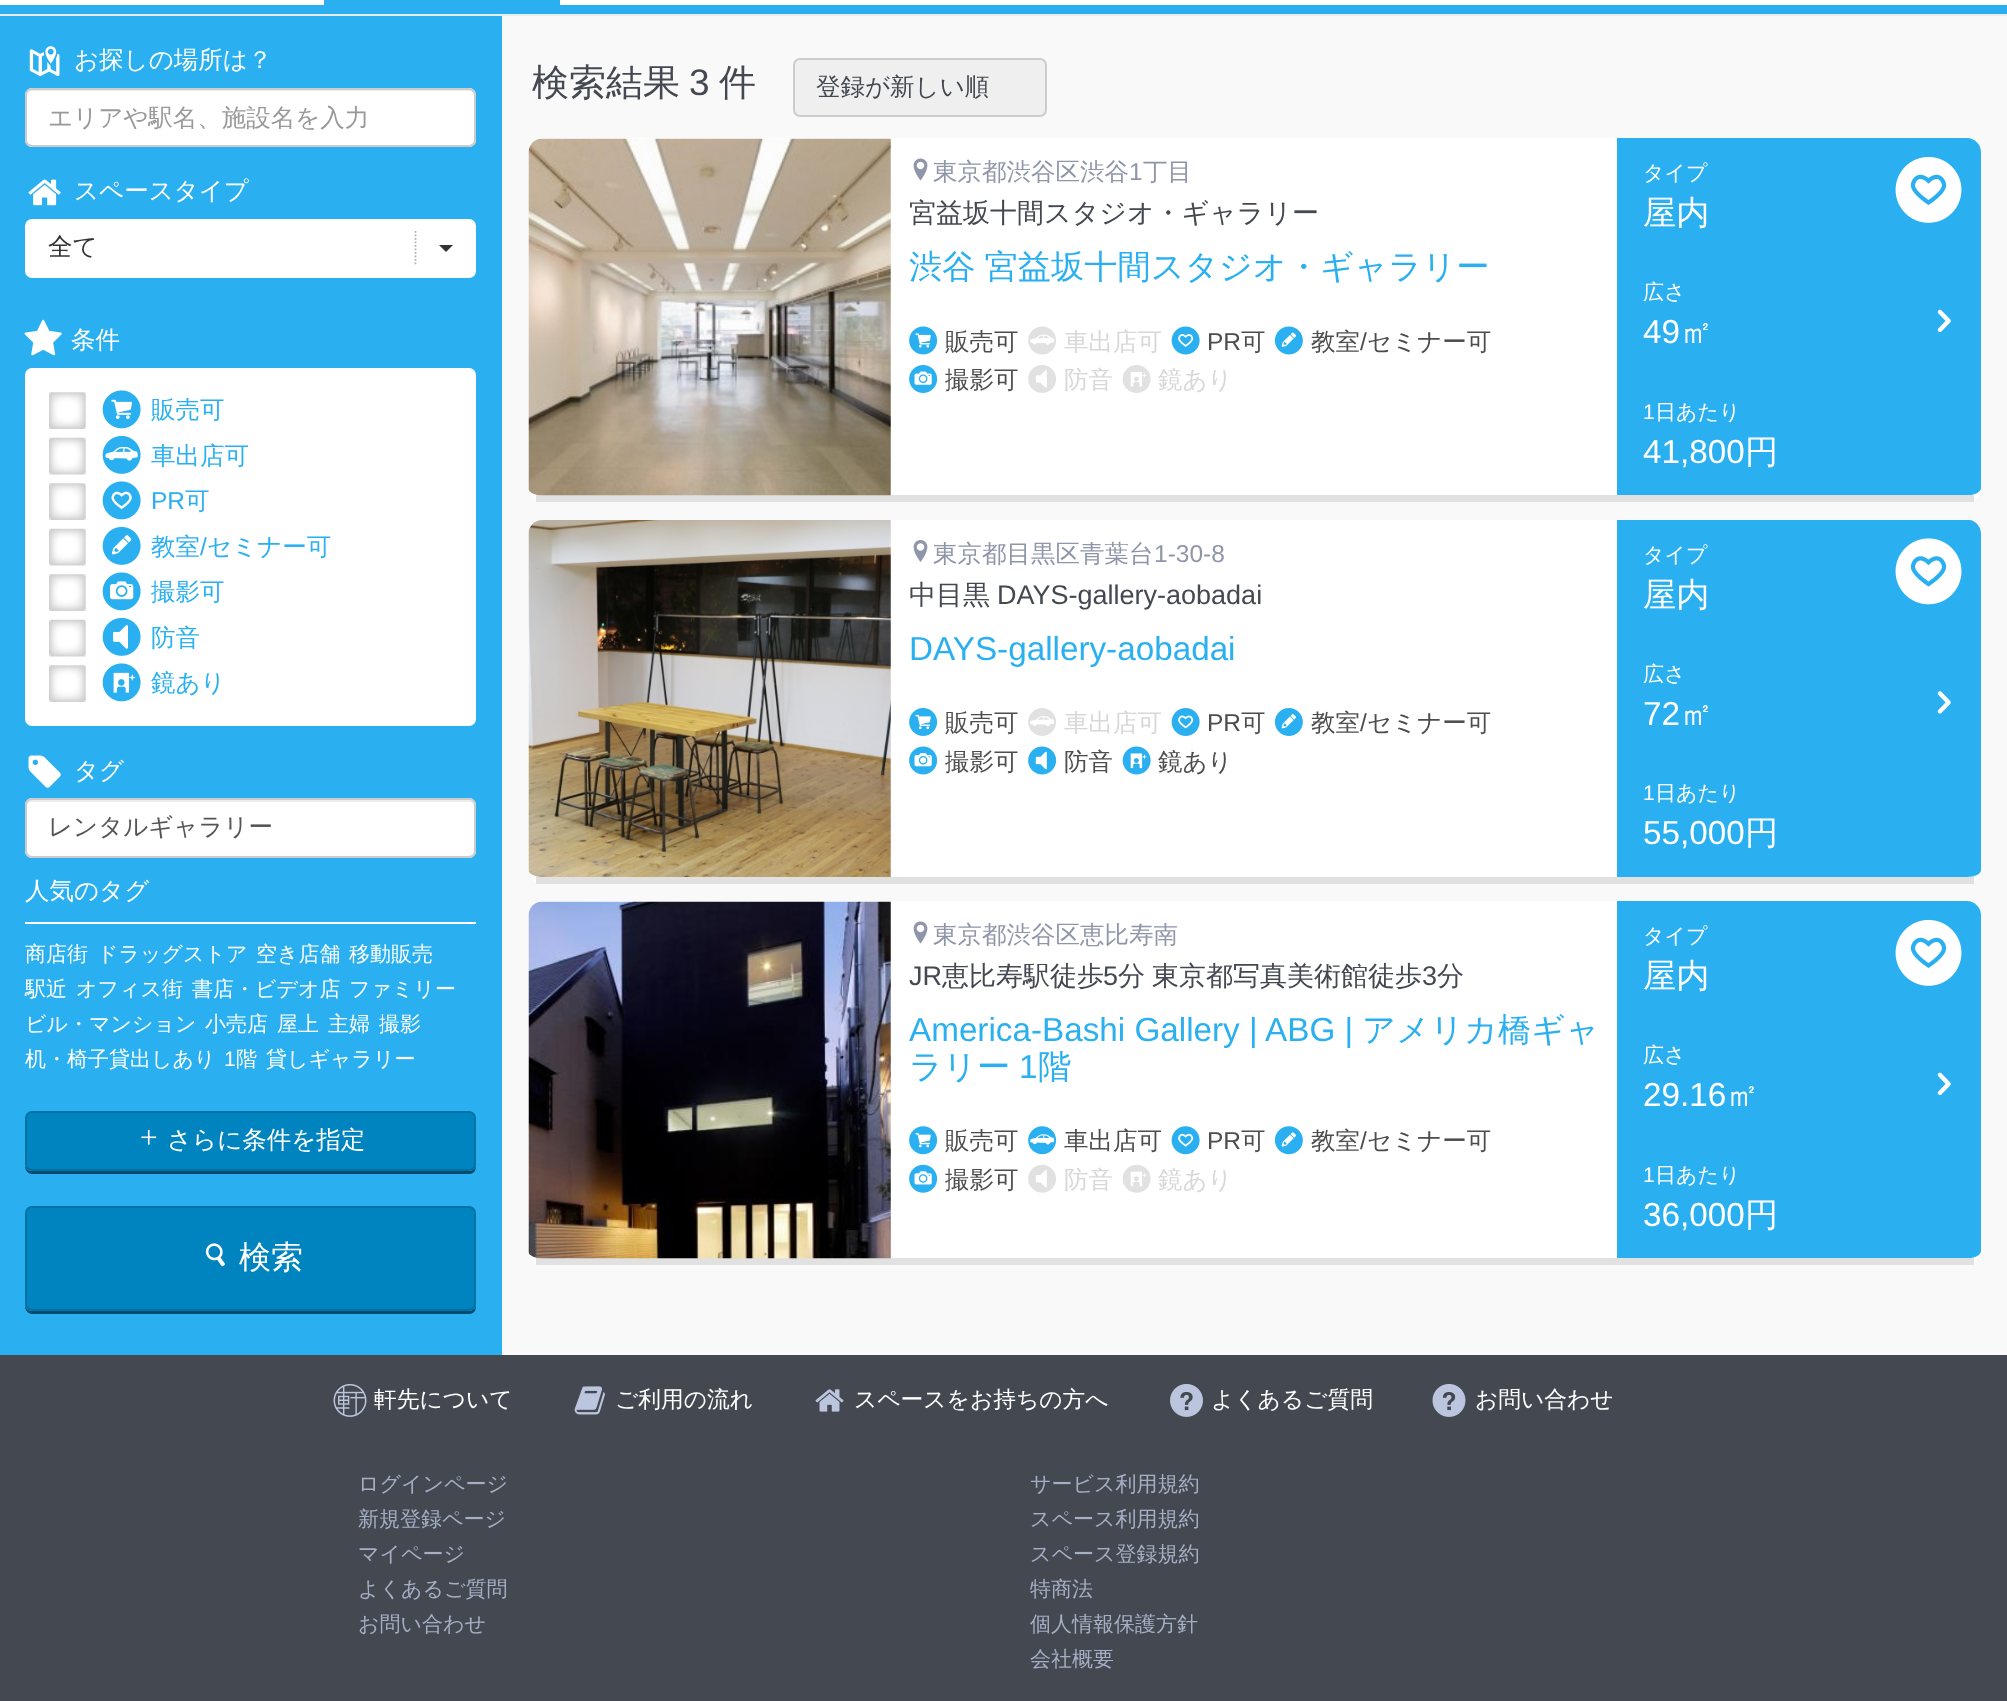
<!DOCTYPE html>
<meta charset="utf-8">
<style>body { margin: 0 } canvas { display: block }</style>
<canvas id="canvas" width="2007" height="1701"></canvas>
<img id="img1" src="img_01.png" hidden>
<img id="img2" src="img_02.png" hidden>
<img id="img3" src="img_03.png" hidden>
<img id="img4" src="img_04.png" hidden>
<img id="img5" src="img_05.png" hidden>
<img id="img6" src="img_06.png" hidden>
<img id="img7" src="img_07.png" hidden>
<img id="img8" src="img_08.png" hidden>
<img id="img9" src="img_09.png" hidden>
<img id="img10" src="img_10.png" hidden>
<img id="img11" src="img_11.png" hidden>
<img id="img12" src="img_12.png" hidden>
<img id="img13" src="img_13.png" hidden>
<img id="img14" src="img_14.png" hidden>
<img id="img15" src="img_15.png" hidden>
<img id="img16" src="img_16.png" hidden>
<img id="img17" src="img_17.png" hidden>
<img id="img18" src="img_18.png" hidden>
<img id="img19" src="img_19.png" hidden>
<img id="img20" src="img_20.png" hidden>
<img id="img21" src="img_21.png" hidden>
<img id="img22" src="img_22.png" hidden>
<img id="img23" src="img_23.png" hidden>
<img id="img24" src="img_24.png" hidden>
<img id="img25" src="img_25.png" hidden>
<img id="img26" src="img_26.png" hidden>
<img id="img27" src="img_27.png" hidden>
<img id="img28" src="img_28.png" hidden>
<img id="img29" src="img_29.png" hidden>
<img id="img30" src="img_30.png" hidden>
<img id="img31" src="img_31.png" hidden>
<img id="img32" src="img_32.png" hidden>
<img id="img33" src="img_33.png" hidden>
<img id="img34" src="img_34.png" hidden>
<img id="img35" src="img_35.png" hidden>
<img id="img36" src="img_36.png" hidden>
<img id="img37" src="img_37.png" hidden>
<img id="img38" src="img_38.png" hidden>
<img id="img39" src="img_39.png" hidden>
<img id="img40" src="img_40.png" hidden>
<img id="img41" src="img_41.png" hidden>
<img id="img42" src="img_42.png" hidden>
<img id="img43" src="img_43.png" hidden>
<img id="img44" src="img_44.png" hidden>
<img id="img45" src="img_45.png" hidden>
<img id="img46" src="img_46.png" hidden>
<img id="img47" src="img_47.png" hidden>
<img id="img48" src="img_48.png" hidden>
<img id="img49" src="img_49.png" hidden>
<img id="img50" src="img_50.png" hidden>
<script>
window.onload = function () {
	const canvas = document.getElementById("canvas");
	const ctx = canvas.getContext("2d");
	ctx.miterLimit = 4;
	ctx.fontKerning = "normal";
	function txt(s, x, y) {
		ctx.fillText(s, x, y);
	}
	function fill(x, y, w, h) {
		ctx.fillRect(x, y, w, h);
	}
	function round(x, y, w, h, r) {
		ctx.beginPath();
		ctx.roundRect(x, y, w, h, r);
		ctx.fill();
	}
	function img(id, x, y, w, h) {
		ctx.drawImage(document.getElementById(id), x, y, w, h);
	}

	ctx.fillStyle = "#F9F9F9";
	fill(0, 0, 2007, 1701);
	ctx.fillStyle = "#FFFFFF";
	fill(0, 0, 2007, 5);
	ctx.fillStyle = "#2AB0F0";
	fill(0, 5, 2007, 9);
	fill(324, 0, 238, 5);
	ctx.fillStyle = "#FFFFFF";
	ctx.beginPath();
	ctx.moveTo(562, -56);
	ctx.lineTo(562, 5);
	ctx.lineTo(560, 5);
	ctx.lineTo(560, -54);
	ctx.bezierCurveTo(560, -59, 557, -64, 553, -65);
	ctx.bezierCurveTo(557, -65, 561, -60, 562, -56);
	ctx.closePath();
	ctx.fill();
	ctx.fillStyle = "#E9EDF0";
	fill(0, 14, 2007, 2);
	ctx.fillStyle = "#2AB0F0";
	fill(0, 16, 502, 1339);
	img("img1", 29, 46, 31, 30);
	ctx.fillStyle = "#FFFFFF";
	round(25, 88, 451, 59, 7);
	ctx.fillStyle = "#ECECEC";
	ctx.beginPath();
	ctx.moveTo(32, 91);
	ctx.lineTo(469, 91);
	ctx.bezierCurveTo(472, 91, 474, 93, 474, 96);
	ctx.bezierCurveTo(474, 93, 473, 89, 469, 89);
	ctx.lineTo(31, 89);
	ctx.bezierCurveTo(27, 89, 26, 93, 26, 96);
	ctx.bezierCurveTo(26, 93, 29, 91, 32, 91);
	ctx.closePath();
	ctx.fill();
	ctx.beginPath();
	ctx.roundRect(26, 89, 449, 57, 6);
	ctx.strokeStyle = "#CCCCCC";
	ctx.lineWidth = 2;
	ctx.stroke();
	img("img2", 28, 179, 33, 27);
	ctx.fillStyle = "#FFFFFF";
	ctx.beginPath();
	ctx.roundRect(26, 220, 449, 57, 6);
	ctx.fill();
	ctx.strokeStyle = "#FFFFFF";
	ctx.stroke();
	ctx.beginPath();
	ctx.moveTo(415.5, 231);
	ctx.lineTo(415.5, 266);
	ctx.strokeStyle = "#B0B0B0";
	ctx.lineWidth = 1.8;
	ctx.setLineDash([1.75, 1.75]);
	ctx.stroke();
	ctx.fillStyle = "#333333";
	ctx.beginPath();
	ctx.moveTo(439, 245);
	ctx.lineTo(453, 245);
	ctx.lineTo(446, 252);
	ctx.closePath();
	ctx.fill();
	img("img3", 24, 319, 38, 37);
	ctx.fillStyle = "#FFFFFF";
	round(25, 368, 451, 358, 7);
	img("img4", 49, 392, 37, 37);
	img("img5", 102, 390, 39, 39);
	img("img6", 49, 437, 37, 38);
	img("img7", 102, 435, 39, 39);
	img("img4", 49, 483, 37, 37);
	img("img8", 102, 481, 39, 39);
	img("img6", 49, 528, 37, 38);
	img("img9", 102, 526, 39, 39);
	img("img4", 49, 574, 37, 37);
	img("img10", 102, 572, 39, 39);
	img("img6", 49, 619, 37, 38);
	img("img11", 102, 617, 39, 39);
	img("img4", 49, 665, 37, 37);
	img("img12", 102, 663, 39, 39);
	img("img13", 28, 755, 33, 33);
	round(25, 798, 451, 60, 7);
	ctx.fillStyle = "#ECECEC";
	ctx.beginPath();
	ctx.moveTo(32, 802);
	ctx.lineTo(469, 802);
	ctx.bezierCurveTo(472, 802, 474, 804, 474, 807);
	ctx.bezierCurveTo(474, 804, 473, 800, 469, 800);
	ctx.lineTo(31, 800);
	ctx.bezierCurveTo(27, 800, 26, 804, 26, 807);
	ctx.bezierCurveTo(26, 804, 29, 802, 32, 802);
	ctx.closePath();
	ctx.fill();
	ctx.beginPath();
	ctx.roundRect(26, 799, 449, 58, 6);
	ctx.strokeStyle = "#CCCCCC";
	ctx.lineWidth = 2;
	ctx.setLineDash([]);
	ctx.stroke();
	ctx.fillStyle = "#FFFFFF";
	fill(25, 922, 451, 2);
	ctx.fillStyle = "#004C6D";
	ctx.beginPath();
	ctx.moveTo(25, 1166);
	ctx.bezierCurveTo(25, 1170, 28, 1174, 32, 1174);
	ctx.lineTo(470, 1174);
	ctx.bezierCurveTo(476, 1173, 476, 1168, 476, 1164);
	ctx.bezierCurveTo(476, 1168, 473, 1171, 469, 1171);
	ctx.lineTo(32, 1171);
	ctx.bezierCurveTo(29, 1171, 26, 1169, 25, 1166);
	ctx.closePath();
	ctx.fill();
	ctx.fillStyle = "#0084BF";
	ctx.beginPath();
	ctx.roundRect(26, 1112, 449, 58, 6);
	ctx.fill();
	ctx.strokeStyle = "#0072A6";
	ctx.stroke();
	img("img14", 141, 1129, 16, 16);
	ctx.fillStyle = "#004C6D";
	ctx.beginPath();
	ctx.moveTo(25, 1306);
	ctx.bezierCurveTo(25, 1310, 28, 1314, 32, 1314);
	ctx.lineTo(470, 1314);
	ctx.bezierCurveTo(476, 1313, 476, 1308, 476, 1304);
	ctx.bezierCurveTo(476, 1308, 473, 1311, 469, 1311);
	ctx.lineTo(32, 1311);
	ctx.bezierCurveTo(29, 1311, 26, 1309, 25, 1306);
	ctx.closePath();
	ctx.fill();
	ctx.fillStyle = "#0084BF";
	ctx.beginPath();
	ctx.roundRect(26, 1207, 449, 103, 6);
	ctx.fill();
	ctx.stroke();
	img("img15", 205, 1243, 20, 24);
	ctx.fillStyle = "#EFEFEF";
	ctx.beginPath();
	ctx.roundRect(794, 59, 252, 57, 6);
	ctx.fill();
	ctx.strokeStyle = "#CCCCCC";
	ctx.stroke();
	ctx.fillStyle = "#FFFFFF";
	round(529, 138, 1452, 364, 14);
	ctx.fillStyle = "#E1E1E1";
	fill(536, 495, 1438, 7);
	img("img16", 528, 138, 363, 358);
	img("img17", 913, 158, 15, 23);
	img("img18", 909, 326, 29, 29);
	img("img19", 1028, 326, 28, 29);
	img("img20", 1171, 326, 29, 29);
	img("img21", 1274, 326, 29, 29);
	img("img22", 909, 365, 29, 28);
	img("img23", 1028, 365, 28, 28);
	img("img24", 1122, 365, 29, 28);
	ctx.fillStyle = "#2AB0F0";
	ctx.beginPath();
	ctx.moveTo(1971, 495);
	ctx.lineTo(1617, 495);
	ctx.lineTo(1617, 138);
	ctx.lineTo(1967, 138);
	ctx.bezierCurveTo(1975, 138, 1981, 145, 1981, 152);
	ctx.lineTo(1981, 488);
	ctx.bezierCurveTo(1981, 491, 1977, 494, 1971, 495);
	ctx.closePath();
	ctx.fill();
	img("img25", 1937, 309, 14, 23);
	img("img26", 1895, 156, 67, 67);
	ctx.fillStyle = "#FFFFFF";
	round(529, 520, 1452, 364, 14);
	ctx.fillStyle = "#E1E1E1";
	fill(536, 877, 1438, 7);
	img("img27", 528, 520, 363, 357);
	img("img28", 913, 540, 15, 22);
	img("img29", 909, 708, 29, 28);
	img("img30", 1028, 708, 28, 28);
	img("img31", 1171, 708, 29, 28);
	img("img32", 1274, 708, 29, 28);
	img("img33", 909, 746, 29, 29);
	img("img34", 1028, 746, 29, 29);
	img("img35", 1122, 746, 29, 29);
	ctx.fillStyle = "#2AB0F0";
	ctx.beginPath();
	ctx.moveTo(1617, 520);
	ctx.lineTo(1617, 877);
	ctx.lineTo(1967, 877);
	ctx.bezierCurveTo(1975, 877, 1981, 874, 1981, 870);
	ctx.lineTo(1981, 534);
	ctx.bezierCurveTo(1981, 527, 1976, 521, 1970, 520);
	ctx.closePath();
	ctx.fill();
	img("img36", 1937, 691, 14, 23);
	img("img37", 1895, 538, 67, 67);
	ctx.fillStyle = "#FFFFFF";
	round(529, 901, 1452, 364, 14);
	ctx.fillStyle = "#E1E1E1";
	fill(536, 1258, 1438, 7);
	img("img38", 528, 901, 363, 358);
	img("img17", 913, 921, 15, 23);
	img("img39", 909, 1126, 29, 29);
	img("img40", 1028, 1126, 29, 29);
	img("img41", 1171, 1126, 29, 29);
	img("img42", 1274, 1126, 29, 29);
	img("img43", 909, 1164, 29, 29);
	img("img44", 1028, 1164, 28, 29);
	img("img45", 1122, 1164, 29, 29);
	ctx.fillStyle = "#2AB0F0";
	ctx.beginPath();
	ctx.moveTo(1971, 1258);
	ctx.lineTo(1617, 1258);
	ctx.lineTo(1617, 901);
	ctx.lineTo(1967, 901);
	ctx.bezierCurveTo(1975, 901, 1981, 908, 1981, 915);
	ctx.lineTo(1981, 1251);
	ctx.bezierCurveTo(1981, 1254, 1977, 1257, 1971, 1258);
	ctx.closePath();
	ctx.fill();
	img("img25", 1937, 1072, 14, 23);
	img("img26", 1895, 919, 67, 67);
	ctx.fillStyle = "#444851";
	fill(0, 1355, 2007, 346);
	img("img46", 333, 1384, 34, 33);
	img("img47", 574, 1386, 31, 29);
	img("img48", 815, 1389, 29, 23);
	img("img49", 1170, 1384, 33, 33);
	img("img50", 1432, 1384, 34, 33);
	ctx.font = "500 24.5px WenQuanYi Zen Hei";
	ctx.fillStyle = "#FFFFFF";
	txt("お探しの場所は？", 74, 68);
	ctx.fillStyle = "#999999";
	txt("エリアや駅名、施設名を入力", 48, 126);
	ctx.fillStyle = "#FFFFFF";
	txt("スペースタイプ", 74, 199);
	ctx.fillStyle = "#333333";
	txt("全て", 48, 255);
	ctx.fillStyle = "#FFFFFF";
	txt("条件", 71, 348);
	ctx.fillStyle = "#2AB0F0";
	txt("販売可", 151, 418);
	txt("車出店可", 151, 464);
	ctx.font = "24.5px Liberation Sans";
	txt("PR", 151, 509);
	ctx.font = "500 24.5px WenQuanYi Zen Hei";
	txt("可", 185, 509);
	txt("教室", 151, 555);
	ctx.font = "24.5px Liberation Sans";
	txt("/", 200, 555);
	ctx.font = "500 24.5px WenQuanYi Zen Hei";
	txt("セミナー可", 207, 555);
	txt("撮影可", 151, 600);
	txt("防音", 151, 646);
	txt("鏡あり", 151, 691);
	ctx.fillStyle = "#FFFFFF";
	txt("タグ", 74, 779);
	ctx.fillStyle = "#555555";
	txt("レンタルギャラリー", 48, 835);
	ctx.fillStyle = "#FFFFFF";
	txt("人気のタグ", 25, 899);
	ctx.font = "500 21px WenQuanYi Zen Hei";
	txt("商店街", 25, 961);
	txt("ドラッグストア", 97, 961);
	txt("空き店舗", 256, 961);
	txt("移動販売", 349, 961);
	txt("駅近", 25, 996);
	txt("オフィス街", 76, 996);
	txt("書店・ビデオ店", 192, 996);
	txt("ファミリー", 349, 996);
	txt("ビル・マンション", 25, 1031);
	txt("小売店", 205, 1031);
	txt("屋上", 277, 1031);
	txt("主婦", 328, 1031);
	txt("撮影", 379, 1031);
	txt("机・椅子貸出しあり", 25, 1066);
	ctx.font = "21px Liberation Sans";
	txt("1", 224, 1066);
	ctx.font = "500 21px WenQuanYi Zen Hei";
	txt("階", 236, 1066);
	txt("貸しギャラリー", 266, 1066);
	ctx.font = "500 24.5px WenQuanYi Zen Hei";
	txt("さらに条件を指定", 167, 1148);
	ctx.font = "500 32px WenQuanYi Zen Hei";
	txt("検索", 239, 1268);
	ctx.font = "500 37px WenQuanYi Zen Hei";
	ctx.fillStyle = "#444851";
	txt("検索結果", 532, 95);
	ctx.font = "37px Liberation Sans";
	txt("3", 689, 95);
	ctx.font = "500 37px WenQuanYi Zen Hei";
	txt("件", 719, 95);
	ctx.font = "500 24.5px WenQuanYi Zen Hei";
	txt("登録が新しい順", 816, 95);
	ctx.fillStyle = "#8F96A9";
	txt("東京都渋谷区渋谷", 933, 180);
	ctx.font = "24.5px Liberation Sans";
	txt("1", 1129, 180);
	ctx.font = "500 24.5px WenQuanYi Zen Hei";
	txt("丁目", 1143, 180);
	ctx.font = "500 27px WenQuanYi Zen Hei";
	ctx.fillStyle = "#444851";
	txt("宮益坂十間スタジオ・ギャラリー", 909, 222);
	ctx.wordSpacing = "-1px";
	ctx.font = "500 33.25px WenQuanYi Zen Hei";
	ctx.fillStyle = "#2AB0F0";
	txt("渋谷 宮益坂十間スタジオ・ギャラリー", 909, 278);
	ctx.wordSpacing = "0px";
	ctx.font = "500 24.5px WenQuanYi Zen Hei";
	ctx.fillStyle = "#4D4D4D";
	txt("販売可", 945, 350);
	ctx.fillStyle = "#D8D8D8";
	txt("車出店可", 1064, 350);
	ctx.font = "24.5px Liberation Sans";
	ctx.fillStyle = "#4D4D4D";
	txt("PR", 1207, 350);
	ctx.font = "500 24.5px WenQuanYi Zen Hei";
	txt("可", 1241, 350);
	txt("教室", 1311, 350);
	ctx.font = "24.5px Liberation Sans";
	txt("/", 1360, 350);
	ctx.font = "500 24.5px WenQuanYi Zen Hei";
	txt("セミナー可", 1367, 350);
	txt("撮影可", 945, 388);
	ctx.fillStyle = "#D8D8D8";
	txt("防音", 1064, 388);
	txt("鏡あり", 1158, 388);
	ctx.font = "500 21px WenQuanYi Zen Hei";
	ctx.fillStyle = "#FFFFFF";
	txt("タイプ", 1643, 180);
	ctx.font = "500 33.25px WenQuanYi Zen Hei";
	txt("屋内", 1643, 224);
	ctx.font = "500 21px WenQuanYi Zen Hei";
	txt("広さ", 1643, 299);
	ctx.font = "33.25px Liberation Sans";
	txt("49", 1643, 343);
	ctx.font = "500 33.25px WenQuanYi Zen Hei";
	txt("㎡", 1680, 343);
	ctx.font = "21px Liberation Sans";
	txt("1", 1643, 419);
	ctx.font = "500 21px WenQuanYi Zen Hei";
	txt("日あたり", 1655, 419);
	ctx.font = "33.25px Liberation Sans";
	txt("41,800", 1643, 463);
	ctx.font = "500 33.25px WenQuanYi Zen Hei";
	txt("円", 1745, 463);
	ctx.font = "500 24.5px WenQuanYi Zen Hei";
	ctx.fillStyle = "#8F96A9";
	txt("東京都目黒区青葉台", 933, 562);
	ctx.font = "24.5px Liberation Sans";
	txt("1-30-8", 1154, 562);
	ctx.font = "500 27px WenQuanYi Zen Hei";
	ctx.fillStyle = "#444851";
	txt("中目黒", 909, 604);
	ctx.font = "27px Liberation Sans";
	txt("DAYS-gallery-aobadai", 997, 604);
	ctx.font = "33.25px Liberation Sans";
	ctx.fillStyle = "#2AB0F0";
	txt("DAYS-gallery-aobadai", 909, 660);
	ctx.font = "500 24.5px WenQuanYi Zen Hei";
	ctx.fillStyle = "#4D4D4D";
	txt("販売可", 945, 731);
	ctx.fillStyle = "#D8D8D8";
	txt("車出店可", 1064, 731);
	ctx.font = "24.5px Liberation Sans";
	ctx.fillStyle = "#4D4D4D";
	txt("PR", 1207, 731);
	ctx.font = "500 24.5px WenQuanYi Zen Hei";
	txt("可", 1241, 731);
	txt("教室", 1311, 731);
	ctx.font = "24.5px Liberation Sans";
	txt("/", 1360, 731);
	ctx.font = "500 24.5px WenQuanYi Zen Hei";
	txt("セミナー可", 1367, 731);
	txt("撮影可", 945, 770);
	txt("防音", 1064, 770);
	txt("鏡あり", 1158, 770);
	ctx.font = "500 21px WenQuanYi Zen Hei";
	ctx.fillStyle = "#FFFFFF";
	txt("タイプ", 1643, 562);
	ctx.font = "500 33.25px WenQuanYi Zen Hei";
	txt("屋内", 1643, 606);
	ctx.font = "500 21px WenQuanYi Zen Hei";
	txt("広さ", 1643, 681);
	ctx.font = "33.25px Liberation Sans";
	txt("72", 1643, 725);
	ctx.font = "500 33.25px WenQuanYi Zen Hei";
	txt("㎡", 1680, 725);
	ctx.font = "21px Liberation Sans";
	txt("1", 1643, 800);
	ctx.font = "500 21px WenQuanYi Zen Hei";
	txt("日あたり", 1655, 800);
	ctx.font = "33.25px Liberation Sans";
	txt("55,000", 1643, 844);
	ctx.font = "500 33.25px WenQuanYi Zen Hei";
	txt("円", 1745, 844);
	ctx.font = "500 24.5px WenQuanYi Zen Hei";
	ctx.fillStyle = "#8F96A9";
	txt("東京都渋谷区恵比寿南", 933, 943);
	ctx.font = "27px Liberation Sans";
	ctx.fillStyle = "#444851";
	txt("JR", 909, 985);
	ctx.font = "500 27px WenQuanYi Zen Hei";
	txt("恵比寿駅徒歩", 942, 985);
	ctx.font = "27px Liberation Sans";
	txt("5", 1103, 985);
	ctx.wordSpacing = "-1px";
	ctx.font = "500 27px WenQuanYi Zen Hei";
	txt("分 東京都写真美術館徒歩", 1118, 985);
	ctx.wordSpacing = "0px";
	ctx.font = "27px Liberation Sans";
	txt("3", 1422, 985);
	ctx.font = "500 27px WenQuanYi Zen Hei";
	txt("分", 1437, 985);
	ctx.font = "33.25px Liberation Sans";
	ctx.fillStyle = "#2AB0F0";
	txt("America-Bashi Gallery | ABG |", 909, 1041);
	ctx.font = "500 33.25px WenQuanYi Zen Hei";
	txt("アメリカ橋ギャ", 1362, 1041);
	txt("ラリー", 909, 1078);
	ctx.font = "33.25px Liberation Sans";
	txt("1", 1019, 1078);
	ctx.font = "500 33.25px WenQuanYi Zen Hei";
	txt("階", 1038, 1078);
	ctx.font = "500 24.5px WenQuanYi Zen Hei";
	ctx.fillStyle = "#4D4D4D";
	txt("販売可", 945, 1149);
	txt("車出店可", 1064, 1149);
	ctx.font = "24.5px Liberation Sans";
	txt("PR", 1207, 1149);
	ctx.font = "500 24.5px WenQuanYi Zen Hei";
	txt("可", 1241, 1149);
	txt("教室", 1311, 1149);
	ctx.font = "24.5px Liberation Sans";
	txt("/", 1360, 1149);
	ctx.font = "500 24.5px WenQuanYi Zen Hei";
	txt("セミナー可", 1367, 1149);
	txt("撮影可", 945, 1188);
	ctx.fillStyle = "#D8D8D8";
	txt("防音", 1064, 1188);
	txt("鏡あり", 1158, 1188);
	ctx.font = "500 21px WenQuanYi Zen Hei";
	ctx.fillStyle = "#FFFFFF";
	txt("タイプ", 1643, 943);
	ctx.font = "500 33.25px WenQuanYi Zen Hei";
	txt("屋内", 1643, 987);
	ctx.font = "500 21px WenQuanYi Zen Hei";
	txt("広さ", 1643, 1062);
	ctx.font = "33.25px Liberation Sans";
	txt("29.16", 1643, 1106);
	ctx.font = "500 33.25px WenQuanYi Zen Hei";
	txt("㎡", 1726, 1106);
	ctx.font = "21px Liberation Sans";
	txt("1", 1643, 1182);
	ctx.font = "500 21px WenQuanYi Zen Hei";
	txt("日あたり", 1655, 1182);
	ctx.font = "33.25px Liberation Sans";
	txt("36,000", 1643, 1226);
	ctx.font = "500 33.25px WenQuanYi Zen Hei";
	txt("円", 1745, 1226);
	ctx.font = "500 22.75px WenQuanYi Zen Hei";
	txt("軒先について", 374, 1407);
	txt("ご利用の流れ", 615, 1407);
	txt("スペースをお持ちの方へ", 854, 1407);
	txt("よくあるご質問", 1211, 1407);
	txt("お問い合わせ", 1475, 1407);
	ctx.font = "500 21px WenQuanYi Zen Hei";
	ctx.fillStyle = "#A5AFC4";
	txt("ログインページ", 358, 1491);
	txt("新規登録ページ", 358, 1526);
	txt("マイページ", 358, 1561);
	txt("よくあるご質問", 358, 1596);
	txt("お問い合わせ", 358, 1631);
	txt("サービス利用規約", 1030, 1491);
	txt("スペース利用規約", 1030, 1526);
	txt("スペース登録規約", 1030, 1561);
	txt("特商法", 1030, 1596);
	txt("個人情報保護方針", 1030, 1631);
	txt("会社概要", 1030, 1666);
};
</script>
